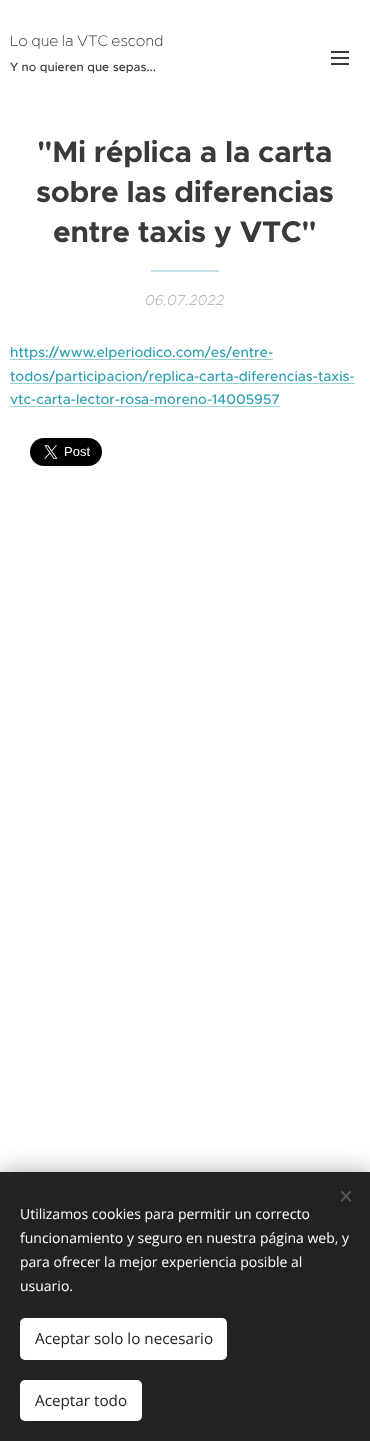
<!DOCTYPE html>
<meta charset="utf-8">
<style>body { margin: 0 } canvas { display: block }</style>
<canvas id="canvas" width="370" height="1441"></canvas>
<img id="img1" src="img_01.png" hidden>
<script>
window.onload = function () {
	const canvas = document.getElementById("canvas");
	const ctx = canvas.getContext("2d");
	ctx.miterLimit = 4;
	ctx.fontKerning = "normal";
	function txt(s, x, y) {
		ctx.fillText(s, x, y);
	}
	function fill(x, y, w, h) {
		ctx.fillRect(x, y, w, h);
	}
	function round(x, y, w, h, r) {
		ctx.beginPath();
		ctx.roundRect(x, y, w, h, r);
		ctx.fill();
	}
	function img(id, x, y, w, h) {
		ctx.drawImage(document.getElementById(id), x, y, w, h);
	}

	ctx.fillStyle = "#FFFFFF";
	fill(0, 0, 370, 1441);
	ctx.fillStyle = "#393939";
	fill(331, 57, 18, 2);
	fill(331, 51, 18, 2);
	fill(331, 63, 18, 2);
	ctx.fillStyle = "#C0E3E8";
	fill(151, 270, 68, 2);
	ctx.fillStyle = "#97D0D8";
	fill(10, 359, 263, 1);
	fill(10, 383, 345, 1);
	fill(10, 406, 270, 1);
	img("img1", 30, 438, 72, 28);
	ctx.fillStyle = "rgba(0, 0, 0, 0.33)";
	ctx.filter = "blur(12.5px)";
	ctx.beginPath();
	ctx.rect(0, 1172, 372, 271);
	ctx.fill();
	ctx.filter = "none";
	ctx.fillStyle = "#222222";
	fill(0, 1172, 370, 269);
	ctx.fillStyle = "#555555";
	ctx.beginPath();
	ctx.moveTo(340.5, 1200.5);
	ctx.lineTo(350, 1190.5);
	ctx.lineTo(351.5, 1192);
	ctx.lineTo(342, 1202);
	ctx.closePath();
	ctx.fill();
	ctx.beginPath();
	ctx.moveTo(342, 1190.5);
	ctx.lineTo(351.5, 1200.5);
	ctx.lineTo(350, 1202);
	ctx.lineTo(340.5, 1192);
	ctx.closePath();
	ctx.fill();
	ctx.fillStyle = "#FFFFFF";
	round(20, 1318, 207, 42, 5);
	round(20, 1380, 122, 41, 5);
	ctx.wordSpacing = "-1px";
	ctx.font = "200 15.25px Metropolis";
	ctx.fillStyle = "#393939";
	txt("Lo que la VTC escond", 10, 46);
	ctx.wordSpacing = "0px";
	ctx.font = "500 12px Metropolis";
	txt("Y no quieren que sepas...", 10, 71);
	ctx.letterSpacing = "-0.3px";
	ctx.font = "bold 30px Metropolis";
	txt("\"Mi réplica a la carta", 37, 162);
	txt("sobre las diferencias", 36, 202);
	txt("entre taxis y VTC\"", 53, 242);
	ctx.letterSpacing = "0px";
	ctx.font = "italic 300 14.5px Metropolis";
	ctx.fillStyle = "#BABABA";
	txt("06.07.2022", 145, 305);
	ctx.font = "500 14px Metropolis";
	ctx.fillStyle = "#2EA1B1";
	txt("https://www.elperiodico.com/es/entre-", 10, 357);
	txt("todos/participacion/replica-carta-diferencias-taxis-", 10, 381);
	txt("vtc-carta-lector-rosa-moreno-14005957", 10, 404);
	ctx.font = "14px Open Sans";
	ctx.fillStyle = "#FFFFFF";
	txt("Utilizamos cookies para permitir un correcto", 20, 1219);
	txt("funcionamiento y seguro en nuestra página web, y", 20, 1243);
	txt("para ofrecer la mejor experiencia posible al", 20, 1267);
	txt("usuario.", 20, 1291);
	ctx.font = "15.25px Open Sans";
	ctx.fillStyle = "#222222";
	txt("Aceptar solo lo necesario", 35, 1344);
	txt("Aceptar todo", 35, 1406);
};
</script>
